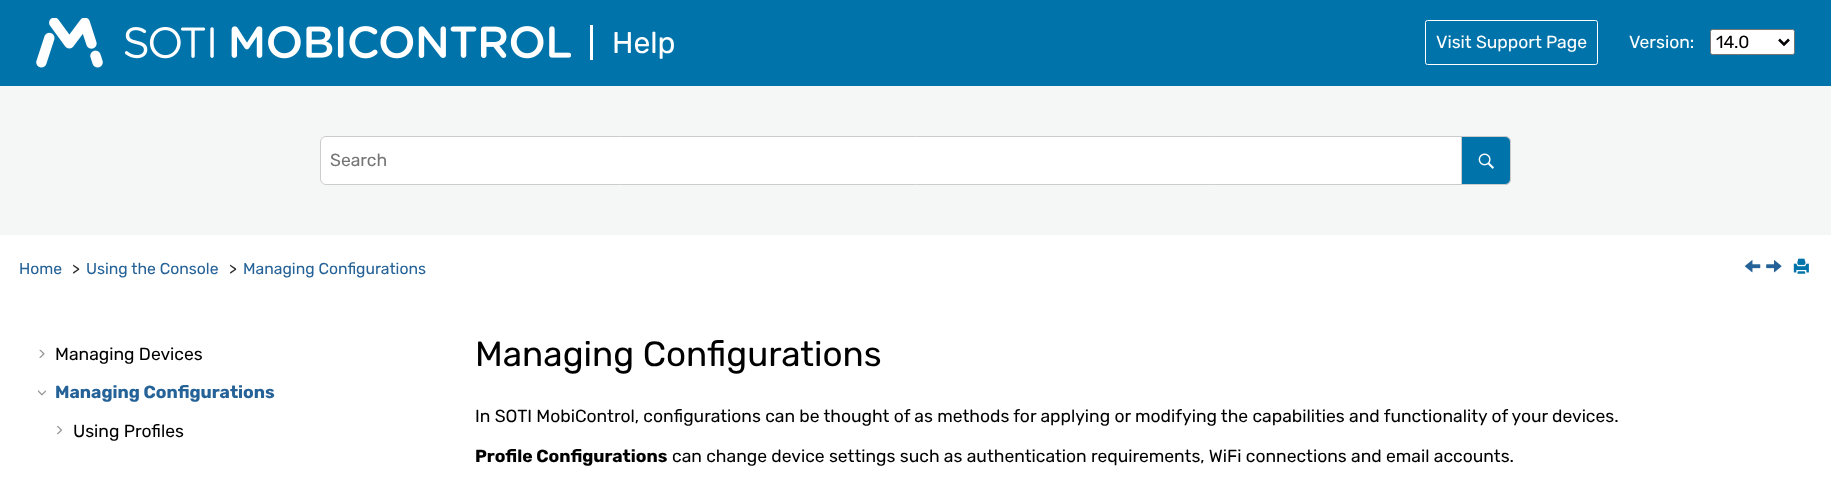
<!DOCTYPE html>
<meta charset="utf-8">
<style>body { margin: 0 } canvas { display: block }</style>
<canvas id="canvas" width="1831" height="479"></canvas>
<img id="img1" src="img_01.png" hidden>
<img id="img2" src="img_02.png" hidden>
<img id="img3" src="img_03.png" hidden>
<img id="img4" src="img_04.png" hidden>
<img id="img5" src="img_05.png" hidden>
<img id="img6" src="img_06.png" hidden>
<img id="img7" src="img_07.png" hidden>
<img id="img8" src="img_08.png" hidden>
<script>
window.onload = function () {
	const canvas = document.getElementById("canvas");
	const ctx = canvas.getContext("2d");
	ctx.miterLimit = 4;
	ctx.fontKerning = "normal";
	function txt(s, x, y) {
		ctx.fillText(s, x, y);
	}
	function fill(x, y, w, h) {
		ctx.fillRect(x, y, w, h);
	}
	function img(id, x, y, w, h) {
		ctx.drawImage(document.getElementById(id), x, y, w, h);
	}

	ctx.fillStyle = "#FFFFFF";
	fill(0, 0, 1831, 479);
	ctx.fillStyle = "#0074AA";
	fill(0, 0, 1831, 86);
	img("img1", 36, 18, 535, 50);
	ctx.fillStyle = "#FFFFFF";
	fill(590, 25, 3, 35);
	ctx.beginPath();
	ctx.roundRect(1425.5, 20.5, 172, 44, 2);
	ctx.strokeStyle = "#FFFFFF";
	ctx.stroke();
	ctx.beginPath();
	ctx.roundRect(1710.5, 29.5, 84, 25, 2);
	ctx.fill();
	ctx.strokeStyle = "#767676";
	ctx.stroke();
	ctx.beginPath();
	ctx.moveTo(1779, 39.5);
	ctx.lineTo(1784, 44.5);
	ctx.lineTo(1789, 39.5);
	ctx.strokeStyle = "#000000";
	ctx.lineWidth = 2.5;
	ctx.stroke();
	ctx.fillStyle = "#F5F6F6";
	fill(0, 86, 1831, 149);
	ctx.fillStyle = "#FFFFFF";
	ctx.beginPath();
	ctx.roundRect(320.5, 136.5, 1190, 48, 5.5);
	ctx.fill();
	ctx.strokeStyle = "#CCCCCC";
	ctx.lineWidth = 1;
	ctx.stroke();
	ctx.fillStyle = "#0074AA";
	ctx.beginPath();
	ctx.roundRect(1461.5, 136.5, 49, 48, [0, 5.5, 5.5, 0]);
	ctx.fill();
	ctx.stroke();
	img("img2", 1478, 153, 16, 16);
	img("img3", 1745, 260, 16, 13);
	img("img4", 1766, 260, 16, 13);
	img("img5", 1793, 258, 16, 16);
	img("img6", 39, 349, 6, 9);
	img("img7", 38, 390, 8, 6);
	img("img8", 56, 426, 7, 9);
	ctx.font = "30px Rubik";
	ctx.fillStyle = "#FFFFFF";
	txt("Help", 612, 53);
	ctx.font = "17.5px Rubik";
	txt("Visit Support Page", 1436, 48);
	txt("Version:", 1629, 48);
	ctx.fillStyle = "#000000";
	txt("14.0", 1716, 48);
	ctx.fillStyle = "#757575";
	txt("Search", 330, 166);
	ctx.font = "15.75px Rubik";
	ctx.fillStyle = "#256297";
	txt("Home", 19, 274);
	ctx.fillStyle = "#292929";
	txt(">", 72, 274);
	ctx.fillStyle = "#256297";
	txt("Using the Console", 86, 274);
	ctx.fillStyle = "#292929";
	txt(">", 229, 274);
	ctx.fillStyle = "#256297";
	txt("Managing Configurations", 243, 274);
	ctx.font = "17.5px Rubik";
	ctx.fillStyle = "#000000";
	txt("Managing Devices", 55, 360);
	ctx.font = "bold 17.5px Rubik";
	ctx.fillStyle = "#256297";
	txt("Managing Configurations", 55, 398);
	ctx.font = "17.5px Rubik";
	ctx.fillStyle = "#000000";
	txt("Using Profiles", 73, 437);
	ctx.font = "35px Rubik";
	txt("Managing Configurations", 475, 366);
	ctx.font = "17.5px Rubik";
	txt("In SOTI MobiControl, configurations can be thought of as methods for applying or modifying the capabilities and functionality of your devices.", 475, 422);
	ctx.font = "bold 17.5px Rubik";
	txt("Profile Configurations", 475, 462);
	ctx.font = "17.5px Rubik";
	txt("can change device settings such as authentication requirements, WiFi connections and email accounts.", 672, 462);
};
</script>
